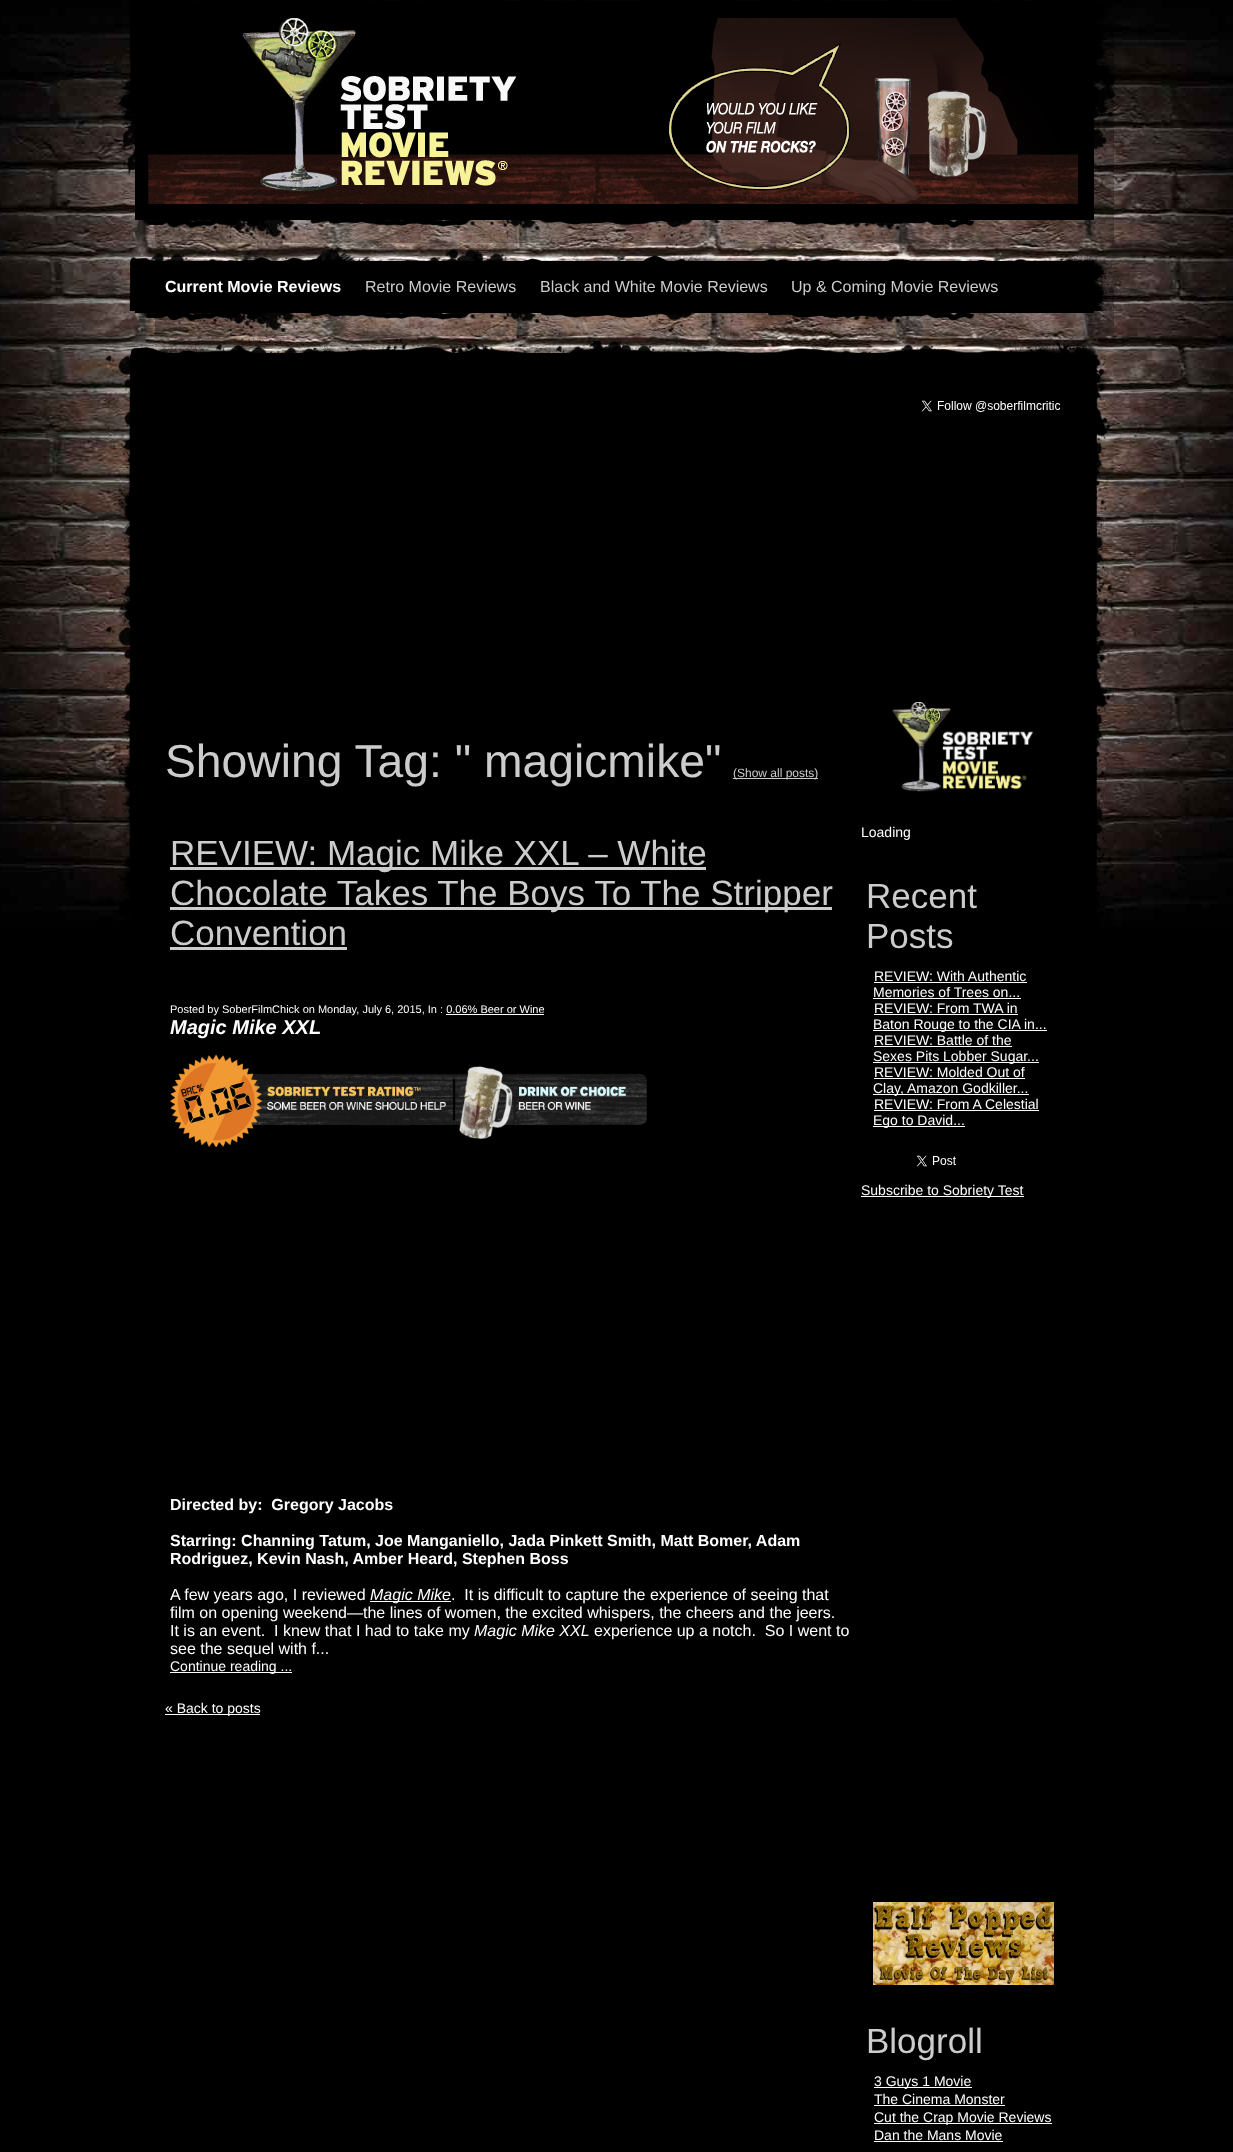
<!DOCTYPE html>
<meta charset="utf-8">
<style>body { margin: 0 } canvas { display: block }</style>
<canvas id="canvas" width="1233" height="2152"></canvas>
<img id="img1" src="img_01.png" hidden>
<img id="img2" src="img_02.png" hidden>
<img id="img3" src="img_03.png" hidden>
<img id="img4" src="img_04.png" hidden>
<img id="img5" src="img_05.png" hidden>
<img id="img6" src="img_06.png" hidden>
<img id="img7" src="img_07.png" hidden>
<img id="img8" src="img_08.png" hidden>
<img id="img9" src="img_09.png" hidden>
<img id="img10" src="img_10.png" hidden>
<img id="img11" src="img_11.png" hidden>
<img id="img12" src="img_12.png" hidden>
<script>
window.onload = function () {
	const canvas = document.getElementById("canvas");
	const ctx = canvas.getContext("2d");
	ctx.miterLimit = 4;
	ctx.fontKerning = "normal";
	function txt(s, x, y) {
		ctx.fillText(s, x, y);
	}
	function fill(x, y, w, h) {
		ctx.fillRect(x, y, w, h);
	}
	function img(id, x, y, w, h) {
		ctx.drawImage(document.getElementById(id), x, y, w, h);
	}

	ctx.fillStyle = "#000000";
	fill(0, 0, 1233, 2152);
	img("img1", 0, 0, 1233, 926);
	img("img2", 116, 0, 1020, 248);
	img("img3", 148, 18, 930, 186);
	img("img4", 121, 248, 1018, 63);
	img("img5", 135, 311, 979, 30);
	img("img6", 78, 313, 1029, 42);
	img("img7", 76, 355, 1062, 571);
	img("img8", 921, 400, 140, 12);
	ctx.fillStyle = "#CCCCCC";
	fill(733, 778, 85, 1);
	fill(170, 867, 536, 3);
	fill(170, 907, 662, 3);
	fill(170, 947, 177, 3);
	ctx.fillStyle = "#FFFFFF";
	fill(446, 1014, 98, 1);
	img("img9", 170, 1055, 477, 92);
	fill(370, 1601, 81, 1);
	fill(170, 1672, 122, 1);
	fill(165, 1714, 95, 1);
	img("img10", 892, 702, 142, 90);
	fill(874, 982, 153, 1);
	fill(873, 998, 148, 1);
	fill(874, 1014, 144, 1);
	fill(873, 1030, 174, 1);
	fill(874, 1046, 138, 1);
	fill(873, 1062, 166, 1);
	fill(874, 1078, 151, 1);
	fill(873, 1094, 156, 1);
	fill(874, 1110, 165, 1);
	fill(873, 1126, 92, 1);
	img("img11", 916, 1155, 40, 12);
	fill(861, 1196, 163, 1);
	img("img12", 873, 1902, 181, 83);
	fill(874, 2087, 98, 1);
	fill(874, 2105, 131, 1);
	fill(874, 2123, 178, 1);
	fill(874, 2141, 129, 1);
	ctx.font = "bold 16px Liberation Sans";
	txt("Current Movie Reviews", 165, 292);
	ctx.font = "16px Liberation Sans";
	ctx.fillStyle = "#CCCCCC";
	txt("Retro Movie Reviews", 365, 292);
	txt("Black and White Movie Reviews", 540, 292);
	txt("Up & Coming Movie Reviews", 791, 292);
	ctx.font = "46.25px Liberation Sans";
	txt("Showing Tag: \" magicmike\"", 165, 777);
	ctx.font = "12px Liberation Sans";
	txt("(Show all posts)", 733, 777);
	ctx.font = "35px Liberation Sans";
	txt("REVIEW: Magic Mike XXL – White", 170, 865);
	txt("Chocolate Takes The Boys To The Stripper", 170, 905);
	txt("Convention", 170, 945);
	ctx.font = "11px Liberation Sans";
	ctx.fillStyle = "#FFFFFF";
	txt("Posted by SoberFilmChick on Monday, July 6, 2015, In : 0.06% Beer or Wine", 170, 1013);
	ctx.font = "italic bold 20px Liberation Sans";
	txt("Magic Mike XXL", 170, 1034);
	ctx.font = "bold 16px Liberation Sans";
	txt("Directed by:  Gregory Jacobs", 170, 1510);
	txt("Starring: Channing Tatum, Joe Manganiello, Jada Pinkett Smith, Matt Bomer, Adam", 170, 1546);
	txt("Rodriguez, Kevin Nash, Amber Heard, Stephen Boss", 170, 1564);
	ctx.font = "16px Liberation Sans";
	txt("A few years ago, I reviewed", 170, 1600);
	ctx.font = "italic 16px Liberation Sans";
	txt("Magic Mike", 370, 1600);
	ctx.font = "16px Liberation Sans";
	txt(".  It is difficult to capture the experience of seeing that", 451, 1600);
	txt("film on opening weekend—the lines of women, the excited whispers, the cheers and the jeers.", 170, 1618);
	txt("It is an event.  I knew that I had to take my", 170, 1636);
	ctx.font = "italic 16px Liberation Sans";
	txt("Magic Mike XXL", 474, 1636);
	ctx.font = "16px Liberation Sans";
	txt("experience up a notch.  So I went to", 594, 1636);
	txt("see the sequel with f...", 170, 1654);
	ctx.font = "14px Liberation Sans";
	txt("Continue reading ...", 170, 1671);
	txt("« Back to posts", 165, 1713);
	txt("Loading", 861, 837);
	ctx.font = "35px Liberation Sans";
	ctx.fillStyle = "#CCCCCC";
	txt("Recent", 866, 908);
	txt("Posts", 866, 948);
	ctx.font = "14px Liberation Sans";
	ctx.fillStyle = "#FFFFFF";
	txt("REVIEW: With Authentic", 874, 981);
	txt("Memories of Trees on...", 873, 997);
	txt("REVIEW: From TWA in", 874, 1013);
	txt("Baton Rouge to the CIA in...", 873, 1029);
	txt("REVIEW: Battle of the", 874, 1045);
	txt("Sexes Pits Lobber Sugar...", 873, 1061);
	txt("REVIEW: Molded Out of", 874, 1077);
	txt("Clay, Amazon Godkiller...", 873, 1093);
	txt("REVIEW: From A Celestial", 874, 1109);
	txt("Ego to David...", 873, 1125);
	txt("Subscribe to Sobriety Test", 861, 1195);
	ctx.font = "35px Liberation Sans";
	ctx.fillStyle = "#CCCCCC";
	txt("Blogroll", 866, 2053);
	ctx.font = "14px Liberation Sans";
	ctx.fillStyle = "#FFFFFF";
	txt("3 Guys 1 Movie", 874, 2086);
	txt("The Cinema Monster", 874, 2104);
	txt("Cut the Crap Movie Reviews", 874, 2122);
	txt("Dan the Mans Movie", 874, 2140);
};
</script>
